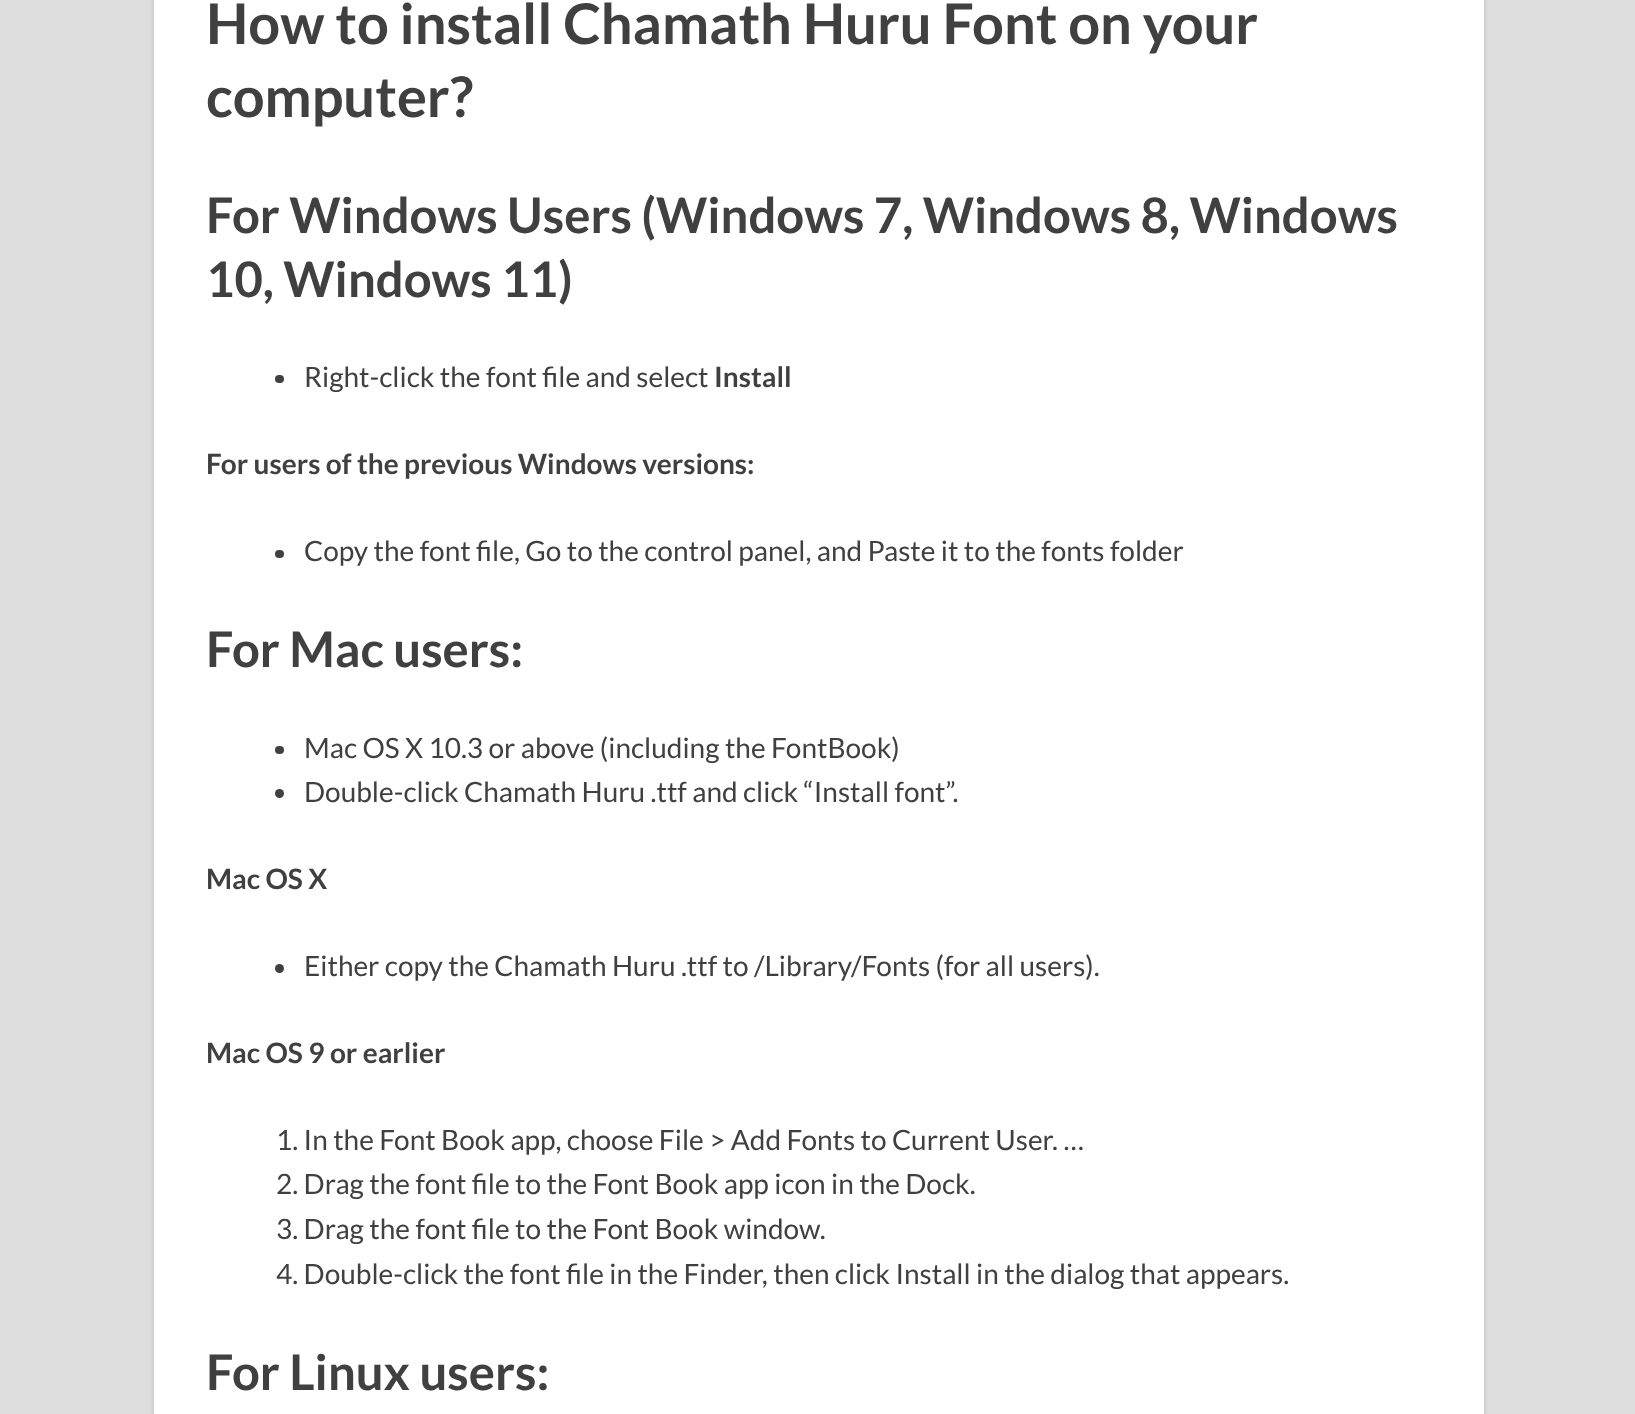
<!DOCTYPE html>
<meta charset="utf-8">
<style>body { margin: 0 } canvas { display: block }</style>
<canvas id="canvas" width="1635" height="1414"></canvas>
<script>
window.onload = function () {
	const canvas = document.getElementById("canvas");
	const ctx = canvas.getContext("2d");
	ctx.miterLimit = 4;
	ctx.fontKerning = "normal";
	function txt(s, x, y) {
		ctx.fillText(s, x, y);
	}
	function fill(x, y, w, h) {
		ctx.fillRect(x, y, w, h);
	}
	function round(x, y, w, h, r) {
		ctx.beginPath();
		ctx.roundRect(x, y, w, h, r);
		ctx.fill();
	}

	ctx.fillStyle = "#DDDDDD";
	fill(0, 0, 1635, 1414);
	ctx.fillStyle = "#BBBBBB";
	ctx.filter = "blur(2px)";
	ctx.beginPath();
	ctx.rect(154, -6, 1330, 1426);
	ctx.fill();
	ctx.filter = "none";
	ctx.fillStyle = "#FFFFFF";
	fill(154, 0, 1330, 1414);
	ctx.fillStyle = "#404040";
	round(275, 375, 9, 8, 4);
	round(275, 550, 9, 8, 4);
	round(275, 746, 9, 8, 4);
	ctx.beginPath();
	ctx.arc(279.5, 793.5, 4.5, 0, Math.PI * 2);
	ctx.fill();
	ctx.beginPath();
	ctx.arc(279.5, 968.5, 4.5, 0, Math.PI * 2);
	ctx.fill();
	ctx.font = "bold 56px Lato";
	txt("How to install Chamath Huru Font on your", 206, 44);
	txt("computer?", 206, 117);
	ctx.font = "bold 49px Lato";
	txt("For Windows Users (Windows 7, Windows 8, Windows", 206, 233);
	txt("10, Windows 11)", 206, 297);
	ctx.font = "28px Lato";
	txt("Right-click the font file and select", 304, 387);
	ctx.font = "bold 28px Lato";
	txt("Install", 714, 387);
	txt("For users of the previous Windows versions:", 206, 474);
	ctx.font = "28px Lato";
	txt("Copy the font file, Go to the control panel, and Paste it to the fonts folder", 304, 561);
	ctx.font = "bold 49px Lato";
	txt("For Mac users:", 206, 667);
	ctx.font = "28px Lato";
	txt("Mac OS X 10.3 or above (including the FontBook)", 304, 758);
	txt("Double-click Chamath Huru .ttf and click “Install font”.", 304, 802);
	ctx.font = "bold 28px Lato";
	txt("Mac OS X", 206, 889);
	ctx.font = "28px Lato";
	txt("Either copy the Chamath Huru .ttf to /Library/Fonts (for all users).", 304, 976);
	ctx.font = "bold 28px Lato";
	txt("Mac OS 9 or earlier", 206, 1063);
	ctx.font = "28px Lato";
	txt("1. In the Font Book app, choose File > Add Fonts to Current User. …", 276, 1150);
	txt("2. Drag the font file to the Font Book app icon in the Dock.", 276, 1194);
	txt("3. Drag the font file to the Font Book window.", 276, 1239);
	txt("4. Double-click the font file in the Finder, then click Install in the dialog that appears.", 276, 1284);
	ctx.font = "bold 49px Lato";
	txt("For Linux users:", 206, 1390);
};
</script>
